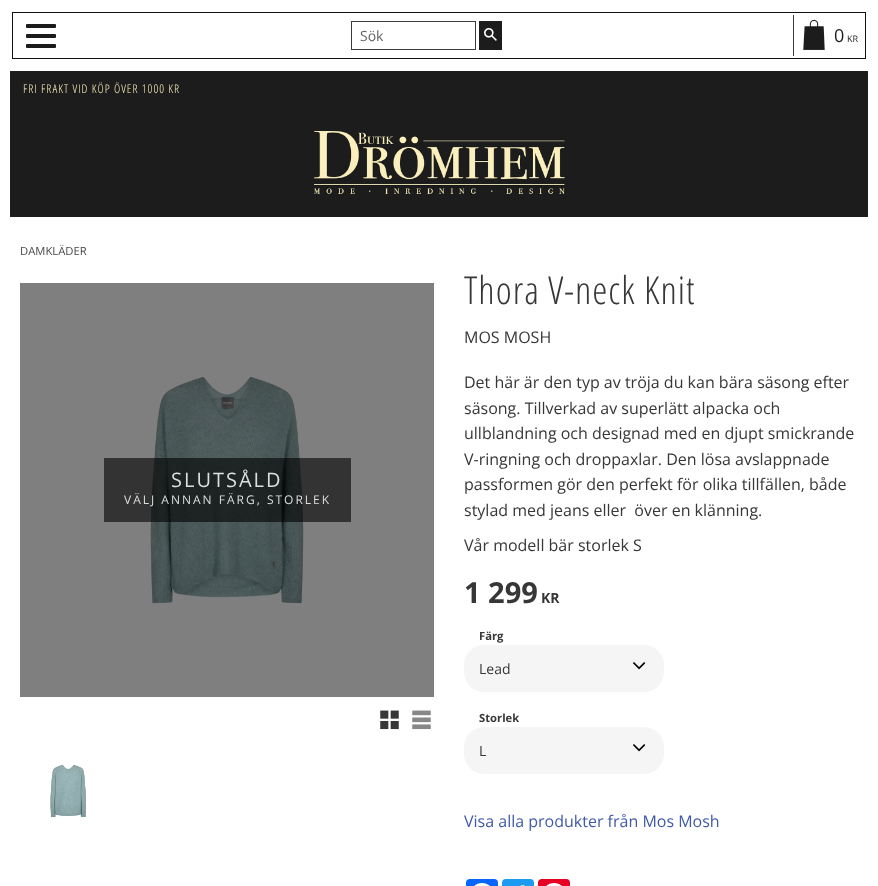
<!DOCTYPE html>
<meta charset="utf-8">
<style>body { margin: 0 } canvas { display: block }</style>
<canvas id="canvas" width="878" height="886"></canvas>
<img id="img1" src="img_01.png" hidden>
<img id="img2" src="img_02.png" hidden>
<img id="img3" src="img_03.png" hidden>
<img id="img4" src="img_04.png" hidden>
<img id="img5" src="img_05.png" hidden>
<img id="img6" src="img_06.png" hidden>
<img id="img7" src="img_07.png" hidden>
<img id="img8" src="img_08.png" hidden>
<img id="img9" src="img_09.png" hidden>
<img id="img10" src="img_10.png" hidden>
<img id="img11" src="img_11.png" hidden>
<script>
window.onload = function () {
	const canvas = document.getElementById("canvas");
	const ctx = canvas.getContext("2d");
	ctx.miterLimit = 4;
	ctx.fontKerning = "normal";
	function txt(s, x, y) {
		ctx.fillText(s, x, y);
	}
	function fill(x, y, w, h) {
		ctx.fillRect(x, y, w, h);
	}
	function round(x, y, w, h, r) {
		ctx.beginPath();
		ctx.roundRect(x, y, w, h, r);
		ctx.fill();
	}
	function img(id, x, y, w, h) {
		ctx.drawImage(document.getElementById(id), x, y, w, h);
	}

	ctx.fillStyle = "#FFFFFF";
	fill(0, 0, 878, 886);
	ctx.strokeStyle = "#111111";
	ctx.strokeRect(12.5, 12.5, 853, 46);
	ctx.fillStyle = "#1C1C1C";
	round(26, 34, 30, 4, 1);
	round(26, 24, 30, 4, 1);
	round(26, 44, 30, 4, 1);
	ctx.strokeStyle = "#3C3C3C";
	ctx.strokeRect(351.5, 21.5, 124, 28);
	fill(479, 21, 23, 29);
	img("img1", 484, 28, 13, 13);
	ctx.fillStyle = "#3C3C3C";
	fill(793, 15, 1, 41);
	img("img2", 803, 19, 22, 31);
	ctx.fillStyle = "#1C1C1C";
	fill(10, 71, 858, 146);
	img("img3", 313, 131, 252, 63);
	img("img4", 150, 377, 154, 227);
	ctx.fillStyle = "rgba(0, 0, 0, 0.5)";
	fill(20, 283, 414, 414);
	ctx.fillStyle = "rgba(0, 0, 0, 0.6)";
	fill(104, 458, 247, 64);
	img("img5", 380, 710, 19, 20);
	img("img6", 412, 710, 19, 20);
	img("img7", 50, 764, 36, 53);
	ctx.fillStyle = "#F5F5F5";
	round(464, 645, 200, 47, 20);
	img("img8", 633, 662, 13, 8);
	round(464, 727, 200, 47, 20);
	img("img8", 633, 744, 13, 8);
	ctx.fillStyle = "#0866FF";
	round(466, 879, 32, 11, 4);
	img("img9", 474, 883, 16, 3);
	ctx.fillStyle = "#1D9BF0";
	round(502, 879, 32, 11, 4);
	img("img10", 520, 885, 10, 1);
	ctx.fillStyle = "#E60023";
	round(538, 879, 32, 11, 4);
	img("img11", 546, 883, 16, 3);
	ctx.font = "14px Open Sans";
	ctx.fillStyle = "#646464";
	txt("Sök", 360, 41);
	ctx.font = "18px Open Sans";
	ctx.fillStyle = "#1C1C1C";
	txt("0", 834, 42);
	ctx.font = "9px Open Sans";
	txt("KR", 847, 42);
	ctx.letterSpacing = "1px";
	ctx.font = "300 12px Open Sans Condensed";
	ctx.fillStyle = "#FBEFBD";
	txt("FRI FRAKT VID KÖP ÖVER 1000 KR", 23, 93);
	ctx.letterSpacing = "0px";
	ctx.font = "11.25px Open Sans";
	ctx.fillStyle = "#494949";
	txt("DAMKLÄDER", 20, 255);
	ctx.letterSpacing = "1px";
	ctx.font = "300 38.5px Open Sans Condensed";
	ctx.fillStyle = "#373737";
	txt("Thora V-neck Knit", 464, 304);
	ctx.letterSpacing = "0px";
	ctx.font = "16px Open Sans";
	txt("MOS MOSH", 464, 343);
	txt("Det här är den typ av tröja du kan bära säsong efter", 464, 388);
	txt("säsong. Tillverkad av superlätt alpacka och", 464, 414);
	txt("ullblandning och designad med en djupt smickrande", 464, 439);
	txt("V-ringning och droppaxlar. Den lösa avslappnade", 464, 465);
	txt("passformen gör den perfekt för olika tillfällen, både", 464, 490);
	txt("stylad med jeans eller  över en klänning.", 464, 516);
	txt("Vår modell bär storlek S", 464, 551);
	ctx.letterSpacing = "2px";
	ctx.font = "20px Open Sans";
	ctx.fillStyle = "#DDDEDE";
	txt("SLUTSÅLD", 171, 487);
	ctx.font = "12px Open Sans";
	txt("VÄLJ ANNAN FÄRG, STORLEK", 124, 504);
	ctx.letterSpacing = "0px";
	ctx.font = "bold 29px Open Sans";
	ctx.fillStyle = "#373737";
	txt("1 299", 464, 603);
	ctx.font = "bold 14px Open Sans";
	txt("KR", 541, 603);
	ctx.font = "bold 11.25px Open Sans";
	txt("Färg", 479, 640);
	ctx.font = "14px Open Sans";
	txt("Lead", 479, 674);
	ctx.font = "bold 11.25px Open Sans";
	txt("Storlek", 479, 722);
	ctx.font = "14px Open Sans";
	txt("L", 479, 756);
	ctx.font = "16px Open Sans";
	ctx.fillStyle = "#405AA7";
	txt("Visa alla produkter från Mos Mosh", 464, 827);
};
</script>
